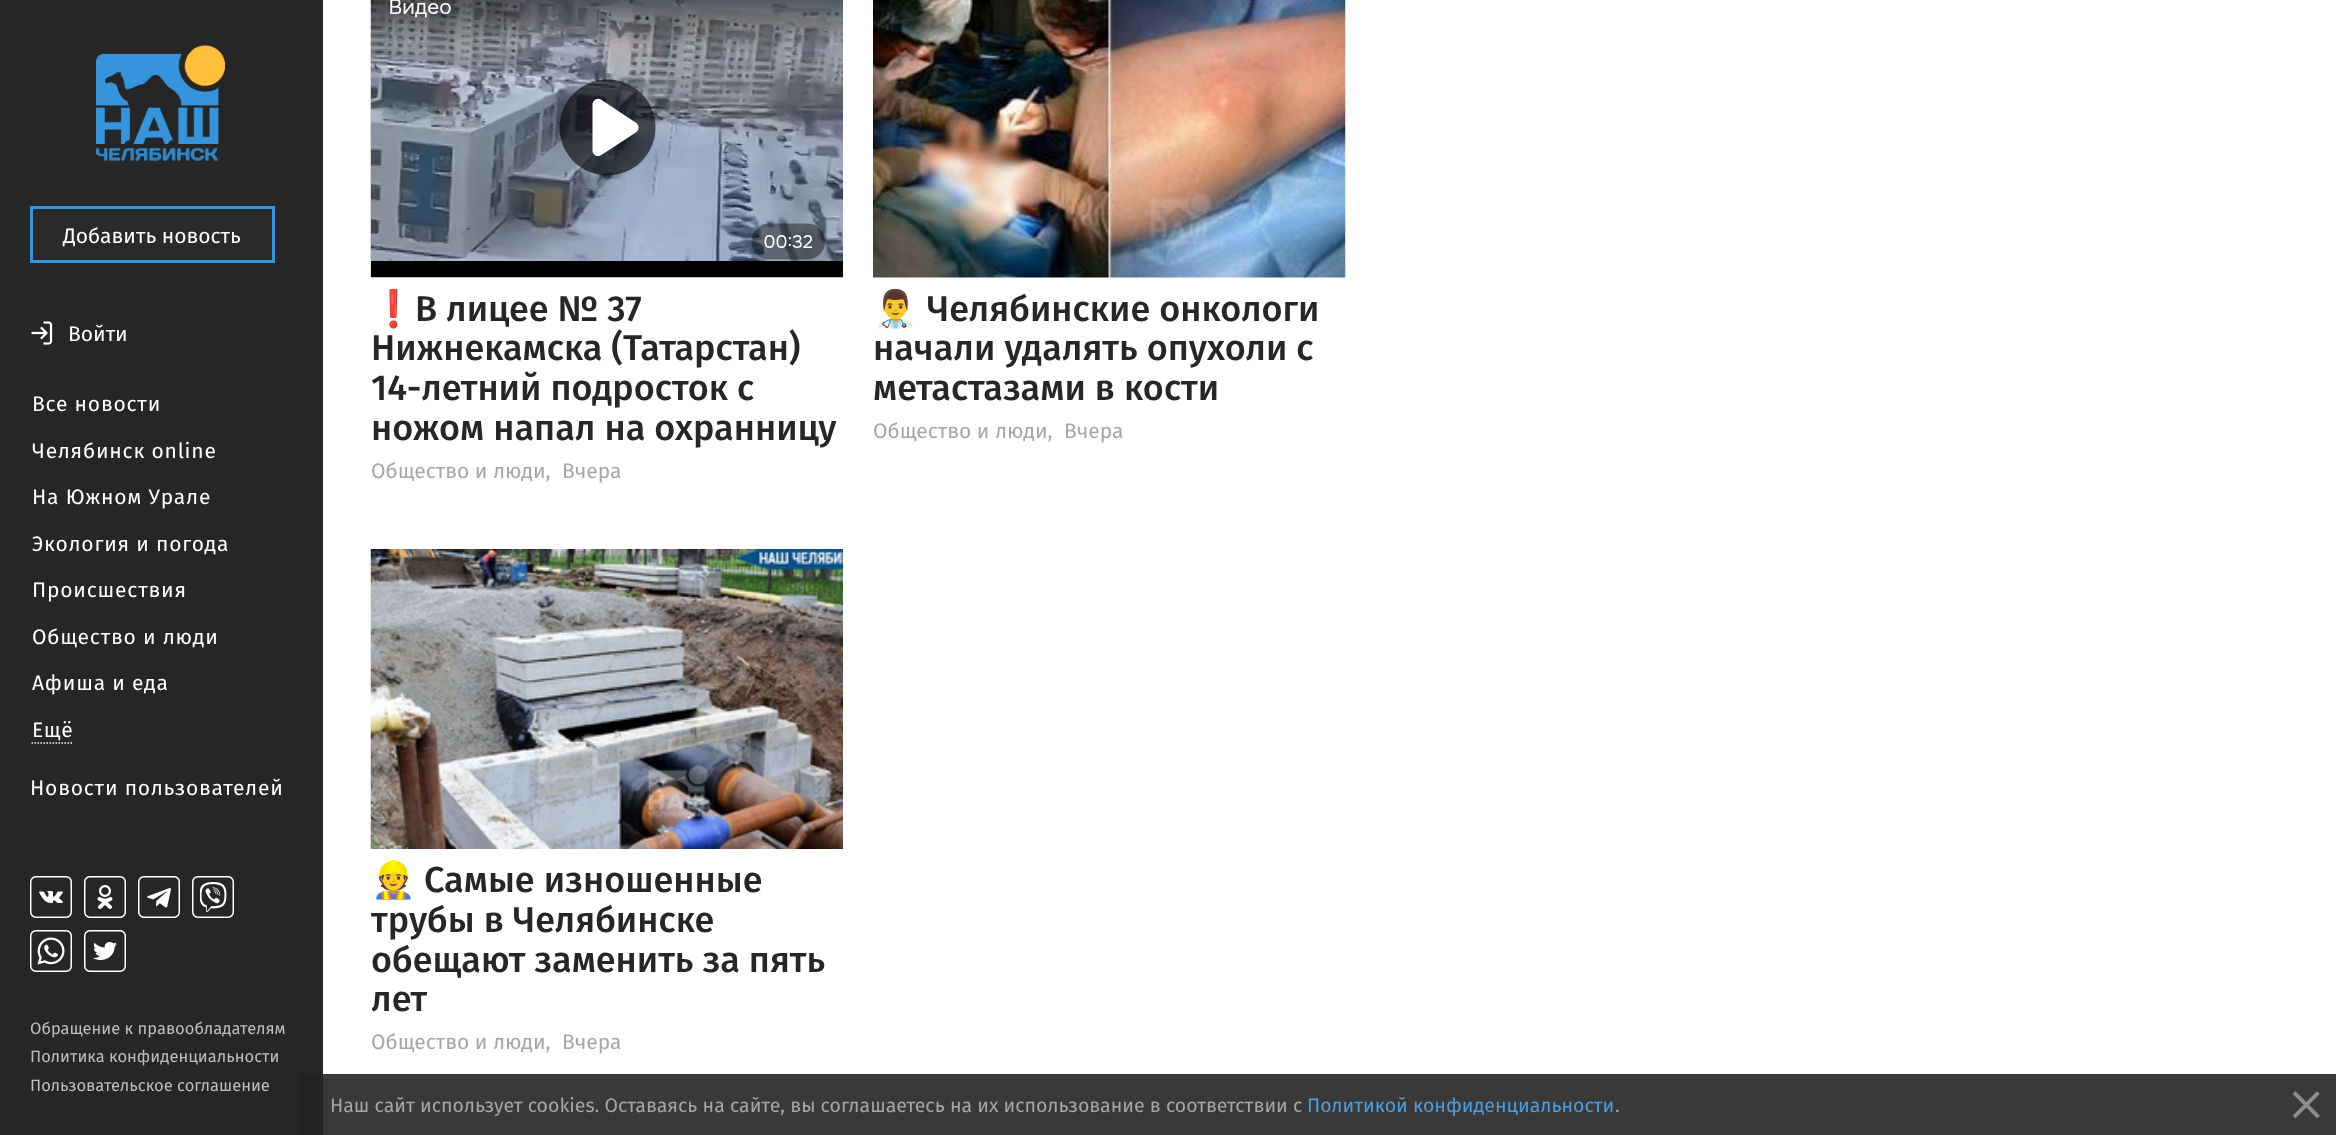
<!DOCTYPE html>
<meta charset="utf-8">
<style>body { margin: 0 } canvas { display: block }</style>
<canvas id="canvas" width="2336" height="1135"></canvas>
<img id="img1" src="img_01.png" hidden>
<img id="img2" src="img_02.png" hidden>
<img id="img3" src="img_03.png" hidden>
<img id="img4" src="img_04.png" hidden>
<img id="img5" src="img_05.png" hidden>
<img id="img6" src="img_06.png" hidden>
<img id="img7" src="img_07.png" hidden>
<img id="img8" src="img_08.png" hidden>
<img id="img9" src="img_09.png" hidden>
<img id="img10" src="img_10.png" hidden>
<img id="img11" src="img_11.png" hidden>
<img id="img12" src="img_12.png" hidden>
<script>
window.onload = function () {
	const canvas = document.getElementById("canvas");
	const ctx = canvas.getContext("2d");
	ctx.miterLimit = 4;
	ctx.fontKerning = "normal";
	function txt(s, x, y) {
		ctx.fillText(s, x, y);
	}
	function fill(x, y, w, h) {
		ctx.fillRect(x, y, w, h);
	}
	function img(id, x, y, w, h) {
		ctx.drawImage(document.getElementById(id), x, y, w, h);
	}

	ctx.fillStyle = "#FFFFFF";
	fill(0, 0, 2336, 1135);
	ctx.fillStyle = "#393939";
	fill(323, 1074, 2013, 61);
	ctx.fillStyle = "#262626";
	fill(0, 0, 323, 1135);
	ctx.fillStyle = "#232323";
	fill(300, 1074, 23, 61);
	img("img1", 96, 45, 129, 116);
	ctx.fillStyle = "#2A2A2A";
	ctx.beginPath();
	ctx.rect(31.5, 207.5, 242, 54);
	ctx.fill();
	ctx.strokeStyle = "#3694DD";
	ctx.lineWidth = 3;
	ctx.stroke();
	img("img2", 31, 321, 22, 24);
	ctx.beginPath();
	ctx.moveTo(31.5, 743);
	ctx.lineTo(73.5, 743);
	ctx.strokeStyle = "#FFFFFF";
	ctx.lineWidth = 1.5;
	ctx.setLineDash([1.5, 1.5]);
	ctx.stroke();
	img("img3", 30, 876, 42, 42);
	img("img4", 84, 876, 42, 42);
	img("img5", 138, 876, 42, 42);
	img("img6", 192, 876, 42, 42);
	img("img7", 30, 930, 42, 42);
	img("img8", 84, 930, 42, 42);
	img("img9", 370, 0, 473, 278);
	img("img10", 873, 0, 473, 278);
	img("img11", 370, 549, 473, 300);
	img("img12", 2292, 1091, 28, 28);
	ctx.font = "21px Fira Sans";
	ctx.fillStyle = "#FFFFFF";
	txt("Добавить новость", 63, 243);
	txt("Войти", 68, 341);
	ctx.letterSpacing = "0.8px";
	txt("Все новости", 32, 411);
	txt("Челябинск online", 32, 458);
	txt("На Южном Урале", 32, 504);
	txt("Экология и погода", 32, 551);
	txt("Происшествия", 32, 597);
	txt("Общество и люди", 32, 644);
	txt("Афиша и еда", 32, 690);
	txt("Ещё", 32, 737);
	txt("Новости пользователей", 30, 795);
	ctx.letterSpacing = "0px";
	ctx.font = "16.5px Fira Sans";
	ctx.fillStyle = "#BEBEBE";
	txt("Обращение к правообладателям", 30, 1034);
	txt("Политика конфиденциальности", 30, 1062);
	txt("Пользовательское соглашение", 30, 1091);
	ctx.save();
	ctx.beginPath();
	ctx.rect(371, 0, 975, 1091);
	ctx.clip();
	ctx.font = "36px Noto Color Emoji";
	ctx.fillStyle = "#262626";
	txt("❗", 371, 321);
	ctx.restore();
	ctx.font = "500 36px Fira Sans";
	ctx.fillStyle = "#262626";
	txt("В лицее № 37", 415, 321);
	txt("Нижнекамска (Татарстан)", 371, 360);
	txt("14-летний подросток с", 371, 400);
	txt("ножом напал на охранницу", 371, 440);
	ctx.font = "21px Fira Sans";
	ctx.fillStyle = "#A6A6A6";
	txt("Общество и люди,", 371, 478);
	txt("Вчера", 562, 478);
	ctx.font = "36px Noto Color Emoji";
	ctx.fillStyle = "#262626";
	txt("👨‍⚕️", 873, 321);
	ctx.font = "500 36px Fira Sans";
	txt("Челябинские онкологи", 927, 321);
	txt("начали удалять опухоли с", 873, 360);
	txt("метастазами в кости", 873, 400);
	ctx.font = "21px Fira Sans";
	ctx.fillStyle = "#A6A6A6";
	txt("Общество и люди,", 873, 438);
	txt("Вчера", 1064, 438);
	ctx.save();
	ctx.beginPath();
	ctx.rect(371, 0, 975, 1091);
	ctx.clip();
	ctx.font = "36px Noto Color Emoji";
	ctx.fillStyle = "#262626";
	txt("👷", 371, 892);
	ctx.restore();
	ctx.font = "500 36px Fira Sans";
	ctx.fillStyle = "#262626";
	txt("Самые изношенные", 424, 892);
	ctx.save();
	ctx.beginPath();
	ctx.rect(371, 0, 975, 1091);
	ctx.clip();
	txt("трубы в Челябинске", 371, 932);
	ctx.restore();
	txt("обещают заменить за пять", 371, 972);
	txt("лет", 371, 1011);
	ctx.font = "21px Fira Sans";
	ctx.fillStyle = "#A6A6A6";
	txt("Общество и люди,", 371, 1049);
	txt("Вчера", 562, 1049);
	ctx.font = "19.5px Fira Sans";
	txt("Наш сайт использует cookies. Оставаясь на сайте, вы соглашаетесь на их использование в соответствии с", 330, 1112);
	ctx.fillStyle = "#4A9FE0";
	txt("Политикой конфиденциальности", 1307, 1112);
	ctx.fillStyle = "#A6A6A6";
	txt(".", 1615, 1112);
};
</script>
